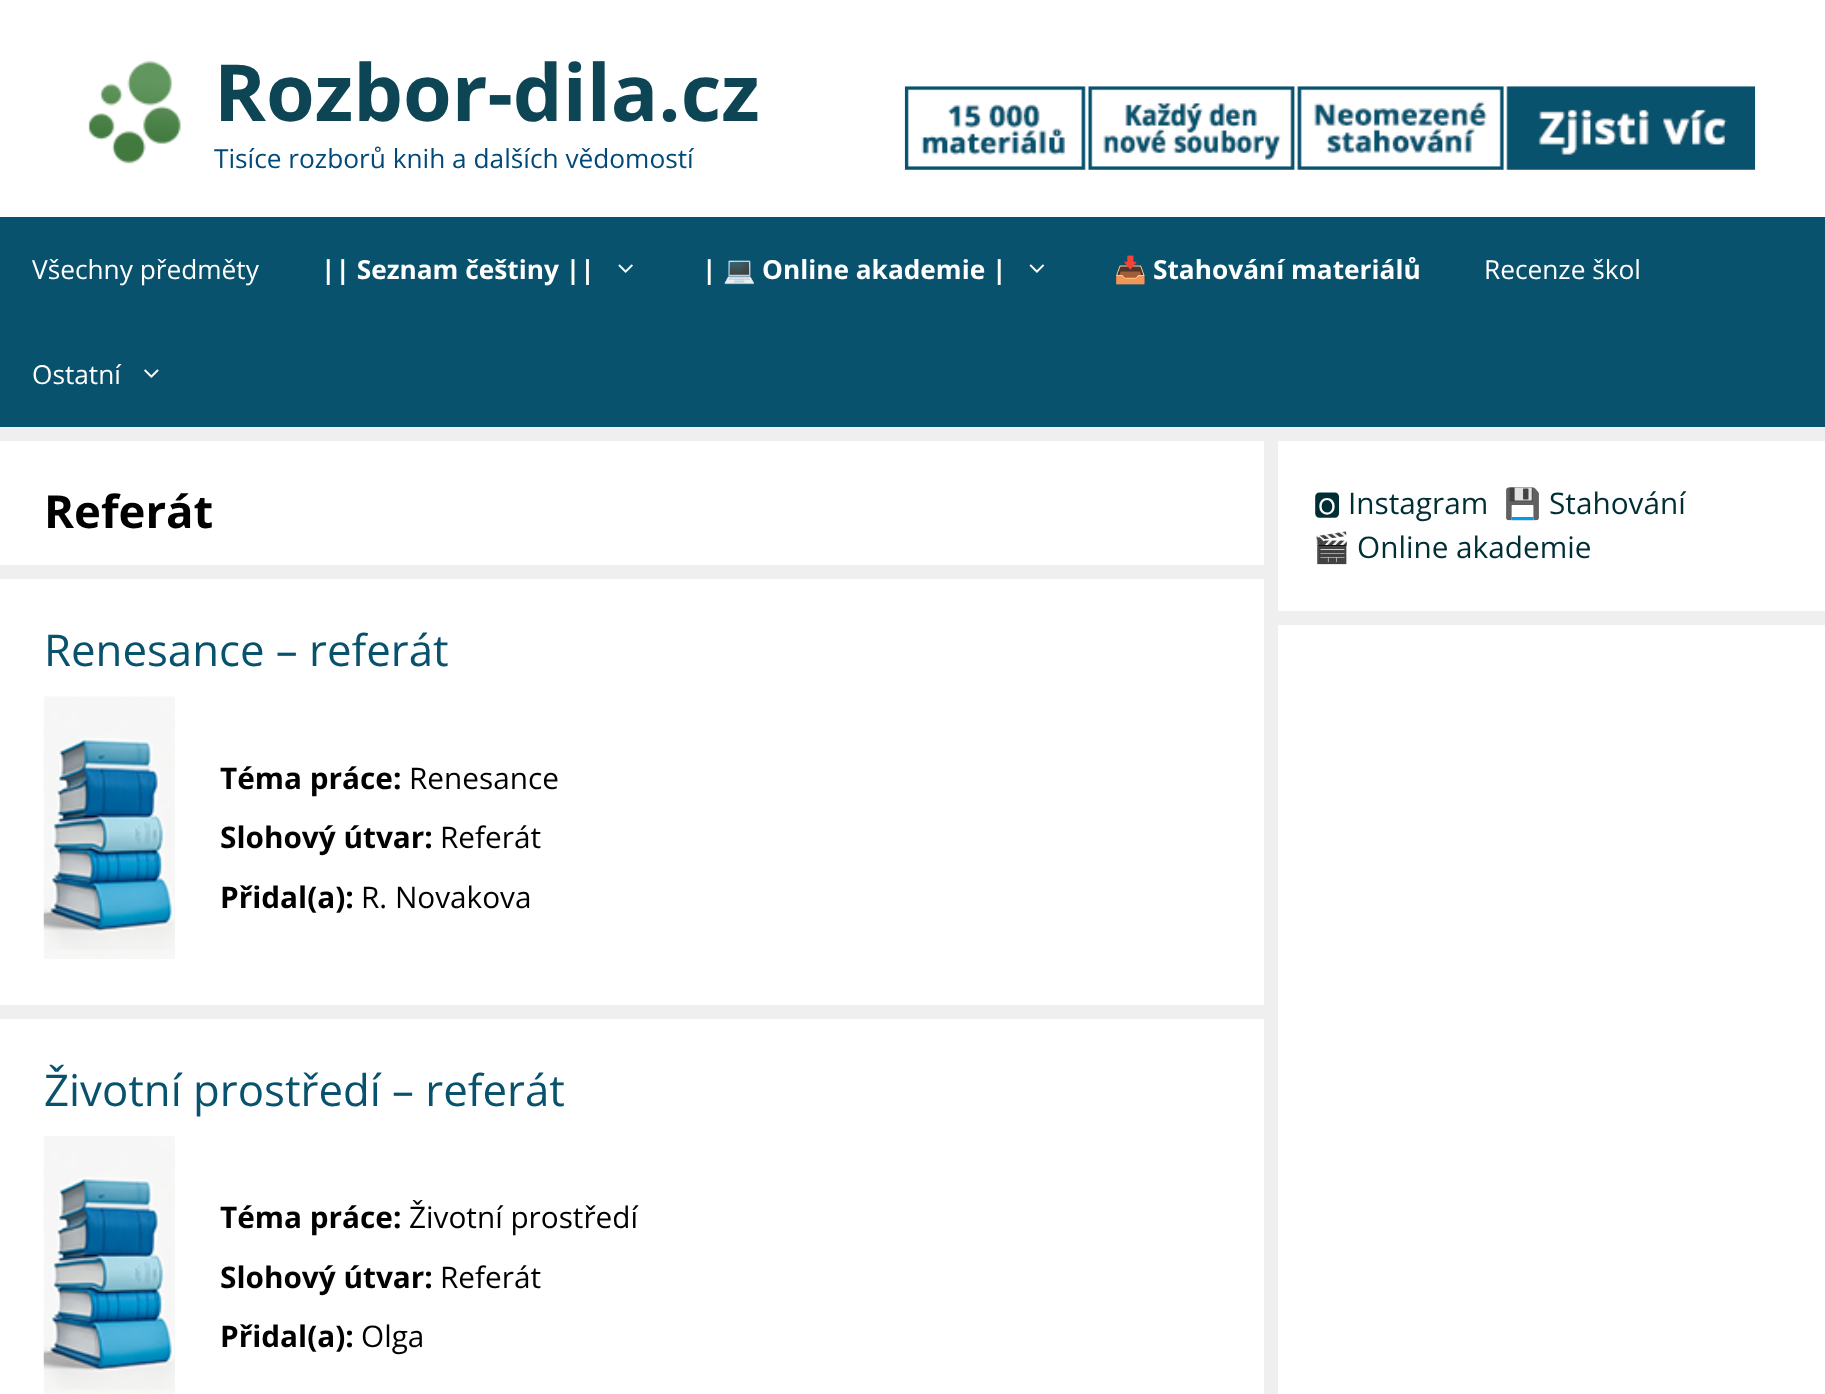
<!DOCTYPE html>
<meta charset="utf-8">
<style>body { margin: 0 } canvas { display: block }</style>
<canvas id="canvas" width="1825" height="1394"></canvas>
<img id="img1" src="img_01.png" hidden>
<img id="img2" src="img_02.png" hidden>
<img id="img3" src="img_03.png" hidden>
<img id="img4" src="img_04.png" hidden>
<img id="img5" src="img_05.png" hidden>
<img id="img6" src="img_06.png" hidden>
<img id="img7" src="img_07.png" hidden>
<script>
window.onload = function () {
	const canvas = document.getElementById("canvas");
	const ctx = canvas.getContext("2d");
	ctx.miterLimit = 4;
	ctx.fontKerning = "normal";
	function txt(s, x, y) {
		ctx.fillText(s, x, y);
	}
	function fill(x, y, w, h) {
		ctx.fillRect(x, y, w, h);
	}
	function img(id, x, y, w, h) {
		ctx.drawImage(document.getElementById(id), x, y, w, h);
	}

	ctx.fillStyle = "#EFEFEF";
	fill(0, 0, 1825, 1394);
	ctx.fillStyle = "#FFFFFF";
	fill(0, 0, 1825, 217);
	img("img1", 88, 60, 93, 104);
	img("img2", 904, 86, 852, 84);
	ctx.fillStyle = "#08526D";
	fill(0, 217, 1825, 210);
	img("img3", 618, 264, 15, 9);
	img("img4", 1029, 264, 16, 9);
	img("img5", 144, 369, 15, 9);
	ctx.fillStyle = "#FFFFFF";
	fill(0, 441, 1264, 124);
	fill(0, 579, 1264, 426);
	img("img6", 43, 696, 132, 263);
	fill(0, 1019, 1264, 375);
	img("img7", 43, 1136, 132, 258);
	fill(1278, 441, 547, 170);
	fill(1278, 625, 547, 769);
	ctx.font = "bold 78.75px Open Sans";
	ctx.fillStyle = "#0E4554";
	txt("Rozbor-dila.cz", 214, 121);
	ctx.font = "26.25px Open Sans";
	ctx.fillStyle = "#00497A";
	txt("Tisíce rozborů knih a dalších vědomostí", 214, 168);
	ctx.fillStyle = "#FFFFFF";
	txt("Všechny předměty", 32, 279);
	ctx.font = "bold 26.25px Open Sans";
	txt("|| Seznam češtiny ||", 321, 279);
	txt("|", 702, 279);
	ctx.font = "bold 26.25px Noto Color Emoji";
	txt("💻", 723, 279);
	ctx.font = "bold 26.25px Open Sans";
	txt("Online akademie |", 762, 279);
	ctx.font = "bold 26.25px Noto Color Emoji";
	txt("📥", 1114, 279);
	ctx.font = "bold 26.25px Open Sans";
	txt("Stahování materiálů", 1153, 279);
	ctx.font = "26.25px Open Sans";
	txt("Recenze škol", 1484, 279);
	txt("Ostatní", 32, 384);
	ctx.font = "bold 45.5px Open Sans";
	ctx.fillStyle = "#000000";
	txt("Referát", 44, 528);
	ctx.font = "43.75px Open Sans";
	ctx.fillStyle = "#08526D";
	txt("Renesance – referát", 44, 666);
	ctx.font = "bold 29.75px Open Sans";
	ctx.fillStyle = "#000000";
	txt("Téma práce:", 220, 789);
	ctx.font = "29.75px Open Sans";
	txt("Renesance", 409, 789);
	ctx.font = "bold 29.75px Open Sans";
	txt("Slohový útvar:", 220, 848);
	ctx.font = "29.75px Open Sans";
	txt("Referát", 440, 848);
	ctx.font = "bold 29.75px Open Sans";
	txt("Přidal(a):", 220, 908);
	ctx.font = "29.75px Open Sans";
	txt("R. Novakova", 361, 908);
	ctx.font = "43.75px Open Sans";
	ctx.fillStyle = "#08526D";
	txt("Životní prostředí – referát", 44, 1106);
	ctx.font = "bold 29.75px Open Sans";
	ctx.fillStyle = "#000000";
	txt("Téma práce:", 220, 1228);
	ctx.font = "29.75px Open Sans";
	txt("Životní prostředí", 409, 1228);
	ctx.font = "bold 29.75px Open Sans";
	txt("Slohový útvar:", 220, 1288);
	ctx.font = "29.75px Open Sans";
	txt("Referát", 440, 1288);
	ctx.font = "bold 29.75px Open Sans";
	txt("Přidal(a):", 220, 1347);
	ctx.font = "29.75px Open Sans";
	txt("Olga", 361, 1347);
	ctx.font = "29.75px FreeSans";
	ctx.fillStyle = "#002E35";
	txt("🅾", 1313, 514);
	ctx.font = "29.75px Open Sans";
	txt("Instagram", 1348, 514);
	ctx.font = "29.75px Noto Color Emoji";
	txt("💾", 1504, 514);
	ctx.font = "29.75px Open Sans";
	txt("Stahování", 1549, 514);
	ctx.font = "29.75px Noto Color Emoji";
	txt("🎬", 1313, 558);
	ctx.font = "29.75px Open Sans";
	txt("Online akademie", 1357, 558);
};
</script>
